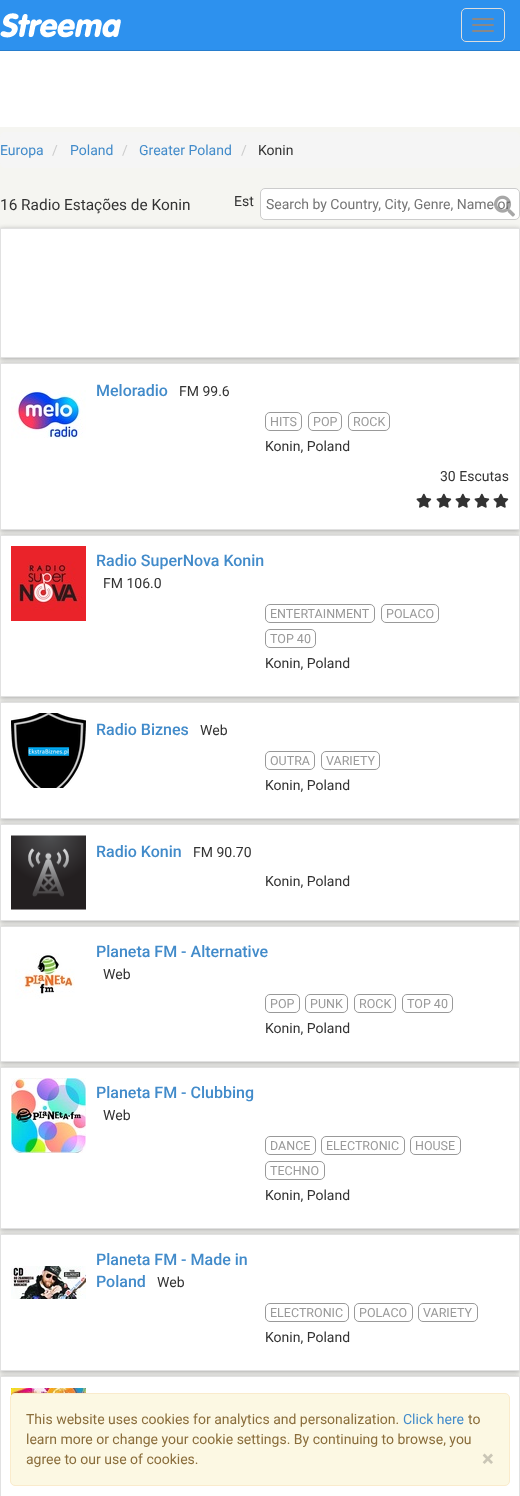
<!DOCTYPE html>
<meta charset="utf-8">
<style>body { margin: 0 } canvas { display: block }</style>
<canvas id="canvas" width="520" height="1496"></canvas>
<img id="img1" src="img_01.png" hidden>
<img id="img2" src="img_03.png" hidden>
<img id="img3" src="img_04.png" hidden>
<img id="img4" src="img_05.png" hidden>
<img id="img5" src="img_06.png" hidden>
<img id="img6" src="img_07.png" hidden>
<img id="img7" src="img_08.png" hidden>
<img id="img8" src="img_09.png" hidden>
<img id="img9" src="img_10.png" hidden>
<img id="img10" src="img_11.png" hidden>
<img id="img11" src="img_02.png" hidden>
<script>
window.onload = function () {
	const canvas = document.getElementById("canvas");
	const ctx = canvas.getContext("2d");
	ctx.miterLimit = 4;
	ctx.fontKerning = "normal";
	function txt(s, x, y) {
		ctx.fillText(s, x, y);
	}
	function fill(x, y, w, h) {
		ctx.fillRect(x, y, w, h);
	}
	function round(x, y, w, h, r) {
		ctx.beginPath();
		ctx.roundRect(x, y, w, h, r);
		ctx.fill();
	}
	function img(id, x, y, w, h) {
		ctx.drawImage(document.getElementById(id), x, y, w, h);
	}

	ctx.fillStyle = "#F5F5F1";
	fill(0, 0, 520, 1496);
	ctx.fillStyle = "#2D91EE";
	fill(0, 0, 520, 50);
	ctx.fillStyle = "#277DCD";
	fill(0, 50, 520, 1);
	img("img1", 0, 13, 121, 25);
	ctx.beginPath();
	ctx.roundRect(461.5, 8.5, 43, 33, 4.5);
	ctx.strokeStyle = "#DDDDDD";
	ctx.stroke();
	ctx.fillStyle = "#888888";
	round(472, 18, 22, 2, 1);
	round(472, 24, 22, 2, 1);
	round(472, 30, 22, 2, 1);
	ctx.fillStyle = "#FFFFFF";
	fill(0, 51, 520, 76);
	ctx.fillStyle = "#F5F5F5";
	round(0, 132, 520, 36, 5);
	ctx.fillStyle = "#FFFFFF";
	ctx.beginPath();
	ctx.roundRect(260.5, 188.5, 259, 31, 4.5);
	ctx.fill();
	ctx.strokeStyle = "#CCCCCC";
	ctx.stroke();
	ctx.fillStyle = "rgba(140, 140, 140, 0.75)";
	ctx.filter = "blur(2.5px)";
	ctx.beginPath();
	ctx.rect(0, 229, 520, 130);
	ctx.fill();
	ctx.filter = "none";
	ctx.fillStyle = "#FFFFFF";
	ctx.beginPath();
	ctx.rect(0.5, 228.5, 519, 129);
	ctx.fill();
	ctx.strokeStyle = "#E1E1E1";
	ctx.stroke();
	ctx.fillStyle = "rgba(140, 140, 140, 0.75)";
	ctx.filter = "blur(2.5px)";
	ctx.beginPath();
	ctx.rect(0, 364, 520, 167);
	ctx.fill();
	ctx.filter = "none";
	ctx.fillStyle = "#FFFFFF";
	ctx.beginPath();
	ctx.rect(0.5, 363.5, 519, 166);
	ctx.fill();
	ctx.stroke();
	img("img2", 11, 390, 75, 49);
	ctx.beginPath();
	ctx.roundRect(265.5, 412.5, 36, 18, 4.5);
	ctx.strokeStyle = "#999999";
	ctx.stroke();
	ctx.beginPath();
	ctx.roundRect(308.5, 412.5, 33, 18, 4.5);
	ctx.stroke();
	ctx.beginPath();
	ctx.roundRect(348.5, 412.5, 41, 18, 4.5);
	ctx.stroke();
	img("img3", 416, 493, 16, 15);
	img("img3", 436, 493, 16, 15);
	img("img3", 455, 493, 16, 15);
	img("img3", 474, 493, 16, 15);
	img("img3", 493, 493, 16, 15);
	ctx.fillStyle = "rgba(140, 140, 140, 0.75)";
	ctx.filter = "blur(2.5px)";
	ctx.beginPath();
	ctx.rect(0, 536, 520, 162);
	ctx.fill();
	ctx.filter = "none";
	ctx.fillStyle = "#FFFFFF";
	ctx.beginPath();
	ctx.rect(0.5, 535.5, 519, 161);
	ctx.fill();
	ctx.strokeStyle = "#E1E1E1";
	ctx.stroke();
	img("img4", 11, 546, 75, 75);
	ctx.beginPath();
	ctx.roundRect(265.5, 604.5, 109, 18, 4.5);
	ctx.strokeStyle = "#999999";
	ctx.stroke();
	ctx.beginPath();
	ctx.roundRect(381.5, 604.5, 57, 18, 4.5);
	ctx.stroke();
	ctx.beginPath();
	ctx.roundRect(265.5, 629.5, 50, 18, 4.5);
	ctx.stroke();
	ctx.fillStyle = "rgba(140, 140, 140, 0.75)";
	ctx.filter = "blur(2.5px)";
	ctx.beginPath();
	ctx.rect(0, 703, 520, 117);
	ctx.fill();
	ctx.filter = "none";
	ctx.fillStyle = "#FFFFFF";
	ctx.beginPath();
	ctx.rect(0.5, 702.5, 519, 116);
	ctx.fill();
	ctx.strokeStyle = "#E1E1E1";
	ctx.stroke();
	img("img5", 11, 713, 75, 75);
	ctx.beginPath();
	ctx.roundRect(265.5, 751.5, 49, 18, 4.5);
	ctx.strokeStyle = "#999999";
	ctx.stroke();
	ctx.beginPath();
	ctx.roundRect(321.5, 751.5, 58, 18, 4.5);
	ctx.stroke();
	ctx.fillStyle = "rgba(140, 140, 140, 0.75)";
	ctx.filter = "blur(2.5px)";
	ctx.beginPath();
	ctx.rect(0, 825, 520, 97);
	ctx.fill();
	ctx.filter = "none";
	ctx.fillStyle = "#FFFFFF";
	ctx.beginPath();
	ctx.rect(0.5, 824.5, 519, 96);
	ctx.fill();
	ctx.strokeStyle = "#E1E1E1";
	ctx.stroke();
	img("img6", 11, 835, 75, 75);
	ctx.fillStyle = "rgba(140, 140, 140, 0.75)";
	ctx.filter = "blur(2.5px)";
	ctx.beginPath();
	ctx.rect(0, 927, 520, 136);
	ctx.fill();
	ctx.filter = "none";
	ctx.fillStyle = "#FFFFFF";
	ctx.beginPath();
	ctx.rect(0.5, 926.5, 519, 135);
	ctx.fill();
	ctx.stroke();
	img("img7", 15, 953, 60, 46);
	ctx.beginPath();
	ctx.roundRect(265.5, 994.5, 34, 18, 4.5);
	ctx.strokeStyle = "#999999";
	ctx.stroke();
	ctx.beginPath();
	ctx.roundRect(305.5, 994.5, 42, 18, 4.5);
	ctx.stroke();
	ctx.beginPath();
	ctx.roundRect(354.5, 994.5, 41, 18, 4.5);
	ctx.stroke();
	ctx.beginPath();
	ctx.roundRect(402.5, 994.5, 50, 18, 4.5);
	ctx.stroke();
	ctx.fillStyle = "rgba(140, 140, 140, 0.75)";
	ctx.filter = "blur(2.5px)";
	ctx.beginPath();
	ctx.rect(0, 1068, 520, 162);
	ctx.fill();
	ctx.filter = "none";
	ctx.fillStyle = "#FFFFFF";
	ctx.beginPath();
	ctx.rect(0.5, 1067.5, 519, 161);
	ctx.fill();
	ctx.strokeStyle = "#E1E1E1";
	ctx.stroke();
	img("img8", 11, 1078, 75, 75);
	ctx.beginPath();
	ctx.roundRect(265.5, 1136.5, 50, 18, 4.5);
	ctx.strokeStyle = "#999999";
	ctx.stroke();
	ctx.beginPath();
	ctx.roundRect(321.5, 1136.5, 83, 18, 4.5);
	ctx.stroke();
	ctx.beginPath();
	ctx.roundRect(410.5, 1136.5, 50, 18, 4.5);
	ctx.stroke();
	ctx.beginPath();
	ctx.roundRect(265.5, 1161.5, 59, 18, 4.5);
	ctx.stroke();
	ctx.fillStyle = "rgba(140, 140, 140, 0.75)";
	ctx.filter = "blur(2.5px)";
	ctx.beginPath();
	ctx.rect(0, 1235, 520, 137);
	ctx.fill();
	ctx.filter = "none";
	ctx.fillStyle = "#FFFFFF";
	ctx.beginPath();
	ctx.rect(0.5, 1234.5, 519, 136);
	ctx.fill();
	ctx.strokeStyle = "#E1E1E1";
	ctx.stroke();
	img("img9", 11, 1266, 75, 33);
	ctx.beginPath();
	ctx.roundRect(265.5, 1303.5, 83, 18, 4.5);
	ctx.strokeStyle = "#999999";
	ctx.stroke();
	ctx.beginPath();
	ctx.roundRect(354.5, 1303.5, 58, 18, 4.5);
	ctx.stroke();
	ctx.beginPath();
	ctx.roundRect(418.5, 1303.5, 59, 18, 4.5);
	ctx.stroke();
	ctx.fillStyle = "rgba(140, 140, 140, 0.75)";
	ctx.filter = "blur(2.5px)";
	ctx.beginPath();
	ctx.rect(0, 1377, 520, 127);
	ctx.fill();
	ctx.filter = "none";
	ctx.fillStyle = "#FFFFFF";
	ctx.beginPath();
	ctx.rect(0.5, 1376.5, 519, 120);
	ctx.fill();
	ctx.strokeStyle = "#E1E1E1";
	ctx.stroke();
	img("img10", 11, 1388, 75, 7);
	ctx.fillStyle = "#FCF8E3";
	ctx.beginPath();
	ctx.roundRect(10.5, 1393.5, 499, 92, 4.5);
	ctx.fill();
	ctx.strokeStyle = "#FAEBCC";
	ctx.stroke();
	ctx.font = "14px Roboto";
	ctx.fillStyle = "#428BCA";
	txt("Europa", 0, 155);
	ctx.fillStyle = "#CCCCCC";
	txt("/", 52, 155);
	ctx.fillStyle = "#428BCA";
	txt("Poland", 70, 155);
	ctx.fillStyle = "#CCCCCC";
	txt("/", 122, 155);
	ctx.fillStyle = "#428BCA";
	txt("Greater Poland", 139, 155);
	ctx.fillStyle = "#CCCCCC";
	txt("/", 241, 155);
	ctx.fillStyle = "#333333";
	txt("Konin", 258, 155);
	txt("Est", 234, 206);
	ctx.font = "15.4px Roboto";
	txt("16 Radio Estações de Konin", 0, 210);
	ctx.font = "14px Roboto";
	ctx.fillStyle = "#757575";
	txt("Search by Country, City, Genre, Name or", 266, 209);
	img("img11", 494, 195, 21, 22);
	ctx.font = "500 16px Roboto";
	ctx.fillStyle = "#428BCA";
	txt("Meloradio", 96, 396);
	ctx.font = "14px Roboto";
	ctx.fillStyle = "#333333";
	txt("FM 99.6", 179, 396);
	ctx.font = "12.5px Roboto";
	ctx.fillStyle = "#999999";
	txt("HITS", 270, 426);
	txt("POP", 313, 426);
	txt("ROCK", 353, 426);
	ctx.font = "14px Roboto";
	ctx.fillStyle = "#333333";
	txt("Konin, Poland", 265, 451);
	txt("30 Escutas", 440, 481);
	ctx.font = "500 16px Roboto";
	ctx.fillStyle = "#428BCA";
	txt("Radio SuperNova Konin", 96, 566);
	ctx.font = "14px Roboto";
	ctx.fillStyle = "#333333";
	txt("FM 106.0", 103, 588);
	ctx.font = "12.5px Roboto";
	ctx.fillStyle = "#999999";
	txt("ENTERTAINMENT", 270, 618);
	txt("POLACO", 386, 618);
	txt("TOP 40", 270, 643);
	ctx.font = "14px Roboto";
	ctx.fillStyle = "#333333";
	txt("Konin, Poland", 265, 668);
	ctx.font = "500 16px Roboto";
	ctx.fillStyle = "#428BCA";
	txt("Radio Biznes", 96, 735);
	ctx.font = "14px Roboto";
	ctx.fillStyle = "#333333";
	txt("Web", 200, 735);
	ctx.font = "12.5px Roboto";
	ctx.fillStyle = "#999999";
	txt("OUTRA", 270, 765);
	txt("VARIETY", 326, 765);
	ctx.font = "14px Roboto";
	ctx.fillStyle = "#333333";
	txt("Konin, Poland", 265, 790);
	ctx.font = "500 16px Roboto";
	ctx.fillStyle = "#428BCA";
	txt("Radio Konin", 96, 857);
	ctx.font = "14px Roboto";
	ctx.fillStyle = "#333333";
	txt("FM 90.70", 193, 857);
	txt("Konin, Poland", 265, 886);
	ctx.font = "500 16px Roboto";
	ctx.fillStyle = "#428BCA";
	txt("Planeta FM - Alternative", 96, 957);
	ctx.font = "14px Roboto";
	ctx.fillStyle = "#333333";
	txt("Web", 103, 979);
	ctx.font = "12.5px Roboto";
	ctx.fillStyle = "#999999";
	txt("POP", 270, 1008);
	txt("PUNK", 310, 1008);
	txt("ROCK", 359, 1008);
	txt("TOP 40", 407, 1008);
	ctx.font = "14px Roboto";
	ctx.fillStyle = "#333333";
	txt("Konin, Poland", 265, 1033);
	ctx.font = "500 16px Roboto";
	ctx.fillStyle = "#428BCA";
	txt("Planeta FM - Clubbing", 96, 1098);
	ctx.font = "14px Roboto";
	ctx.fillStyle = "#333333";
	txt("Web", 103, 1120);
	ctx.font = "12.5px Roboto";
	ctx.fillStyle = "#999999";
	txt("DANCE", 270, 1150);
	txt("ELECTRONIC", 326, 1150);
	txt("HOUSE", 415, 1150);
	txt("TECHNO", 270, 1175);
	ctx.font = "14px Roboto";
	ctx.fillStyle = "#333333";
	txt("Konin, Poland", 265, 1200);
	ctx.font = "500 16px Roboto";
	ctx.fillStyle = "#428BCA";
	txt("Planeta FM - Made in", 96, 1265);
	txt("Poland", 96, 1287);
	ctx.font = "14px Roboto";
	ctx.fillStyle = "#333333";
	txt("Web", 157, 1287);
	ctx.font = "12.5px Roboto";
	ctx.fillStyle = "#999999";
	txt("ELECTRONIC", 270, 1317);
	txt("POLACO", 359, 1317);
	txt("VARIETY", 423, 1317);
	ctx.font = "14px Roboto";
	ctx.fillStyle = "#333333";
	txt("Konin, Poland", 265, 1342);
	ctx.fillStyle = "#8A6D3B";
	txt("This website uses cookies for analytics and personalization.", 26, 1424);
	ctx.fillStyle = "#428BCA";
	txt("Click here", 403, 1424);
	ctx.fillStyle = "#8A6D3B";
	txt("to", 468, 1424);
	txt("learn more or change your cookie settings. By continuing to browse, you", 26, 1444);
	txt("agree to our use of cookies.", 26, 1464);
	ctx.font = "bold 21px Roboto";
	ctx.fillStyle = "#CAC6B6";
	txt("×", 482, 1466);
};
</script>
